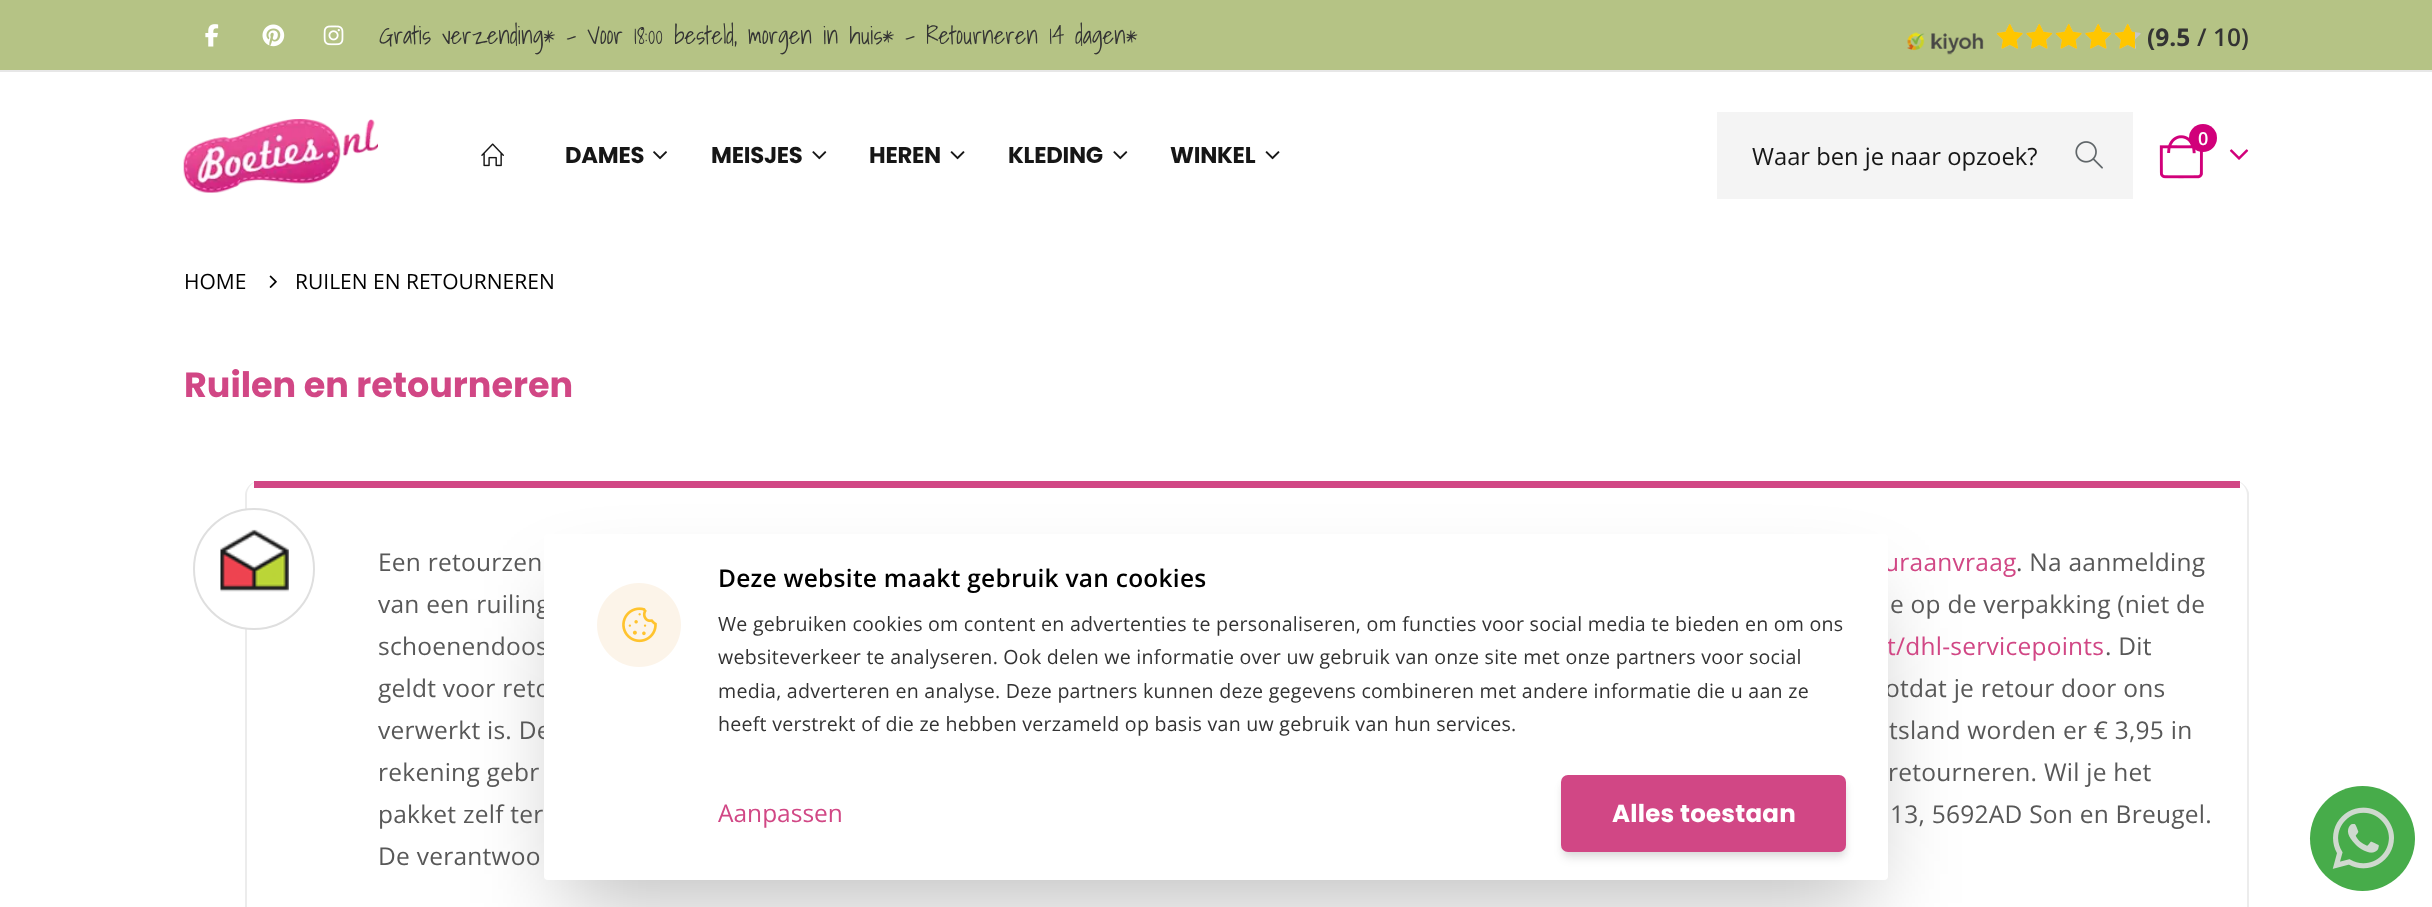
<!DOCTYPE html>
<meta charset="utf-8">
<style>body { margin: 0 } canvas { display: block }</style>
<canvas id="canvas" width="2432" height="907"></canvas>
<img id="img1" src="img_01.png" hidden>
<img id="img2" src="img_02.png" hidden>
<img id="img3" src="img_03.png" hidden>
<img id="img4" src="img_04.png" hidden>
<img id="img5" src="img_05.png" hidden>
<img id="img6" src="img_06.png" hidden>
<img id="img7" src="img_07.png" hidden>
<img id="img8" src="img_08.png" hidden>
<img id="img9" src="img_09.png" hidden>
<img id="img10" src="img_10.png" hidden>
<img id="img11" src="img_11.png" hidden>
<img id="img12" src="img_12.png" hidden>
<img id="img13" src="img_13.png" hidden>
<img id="img14" src="img_14.png" hidden>
<img id="img15" src="img_15.png" hidden>
<img id="img16" src="img_16.png" hidden>
<img id="img17" src="img_17.png" hidden>
<img id="img18" src="img_18.png" hidden>
<script>
window.onload = function () {
	const canvas = document.getElementById("canvas");
	const ctx = canvas.getContext("2d");
	ctx.miterLimit = 4;
	ctx.fontKerning = "normal";
	function txt(s, x, y) {
		ctx.fillText(s, x, y);
	}
	function fill(x, y, w, h) {
		ctx.fillRect(x, y, w, h);
	}
	function round(x, y, w, h, r) {
		ctx.beginPath();
		ctx.roundRect(x, y, w, h, r);
		ctx.fill();
	}
	function img(id, x, y, w, h) {
		ctx.drawImage(document.getElementById(id), x, y, w, h);
	}

	ctx.fillStyle = "#FFFFFF";
	fill(0, 0, 2432, 907);
	ctx.fillStyle = "#B5C385";
	fill(0, 0, 2432, 70);
	ctx.fillStyle = "#E7E7E7";
	fill(0, 70, 2432, 2);
	img("img1", 205, 24, 14, 23);
	img("img2", 262, 24, 23, 23);
	img("img3", 323, 25, 21, 21);
	img("img4", 1907, 32, 77, 23);
	img("img5", 1997, 24, 144, 25);
	img("img6", 1997, 24, 138, 25);
	img("img7", 183, 119, 195, 74);
	img("img8", 481, 143, 23, 24);
	img("img9", 653, 151, 14, 9);
	img("img10", 812, 151, 15, 9);
	img("img11", 950, 151, 15, 9);
	img("img10", 1113, 151, 15, 9);
	img("img11", 1265, 151, 15, 9);
	img("img12", 2159, 135, 44, 44);
	ctx.fillStyle = "#D1007A";
	ctx.beginPath();
	ctx.arc(2203, 138, 14, 0, Math.PI * 2);
	ctx.fill();
	img("img13", 2229, 149, 20, 11);
	ctx.fillStyle = "#F4F4F4";
	fill(1717, 112, 416, 87);
	img("img14", 2075, 141, 28, 28);
	img("img15", 269, 275, 8, 13);
	ctx.fillStyle = "#ECECEC";
	ctx.beginPath();
	ctx.moveTo(257, 481);
	ctx.bezierCurveTo(251, 483, 247, 489, 247, 495);
	ctx.lineTo(247, 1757);
	ctx.bezierCurveTo(247, 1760, 248, 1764, 250, 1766);
	ctx.lineTo(249, 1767);
	ctx.bezierCurveTo(246, 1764, 245, 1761, 245, 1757);
	ctx.lineTo(245, 495);
	ctx.bezierCurveTo(245, 489, 250, 483, 256, 481);
	ctx.closePath();
	ctx.fill();
	ctx.fillStyle = "#FFFFFF";
	ctx.beginPath();
	ctx.arc(254, 569, 60, 0, Math.PI * 2);
	ctx.fill();
	ctx.strokeStyle = "#DFDFDF";
	ctx.lineWidth = 2;
	ctx.stroke();
	img("img16", 220, 529, 69, 63);
	ctx.fillStyle = "#ECECEC";
	ctx.beginPath();
	ctx.moveTo(2249, 493);
	ctx.bezierCurveTo(2248, 488, 2242, 481, 2237, 481);
	ctx.bezierCurveTo(2243, 483, 2247, 489, 2247, 495);
	ctx.lineTo(2247, 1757);
	ctx.bezierCurveTo(2247, 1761, 2246, 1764, 2243, 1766);
	ctx.lineTo(2245, 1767);
	ctx.bezierCurveTo(2247, 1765, 2248, 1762, 2249, 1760);
	ctx.closePath();
	ctx.fill();
	ctx.fillStyle = "#D14785";
	fill(254, 481, 1986, 7);
	ctx.fillStyle = "#47AC4A";
	ctx.beginPath();
	ctx.arc(2362.5, 838.5, 52.5, 0, Math.PI * 2);
	ctx.fill();
	img("img17", 2332, 807, 62, 62);
	ctx.fillStyle = "rgba(0, 0, 0, 0.25)";
	ctx.filter = "blur(44px)";
	ctx.beginPath();
	ctx.rect(565, 599, 1302, 304);
	ctx.fill();
	ctx.filter = "none";
	ctx.font = "300 24.5px Shadows Into Light";
	ctx.fillStyle = "#333333";
	txt("Gratis verzending* - Voor 18:00 besteld, morgen in huis* - Retourneren 14 dagen*", 379, 44);
	ctx.font = "bold 24.5px Open Sans";
	txt("(9.5", 2147, 46);
	ctx.font = "600 24.5px Open Sans";
	txt("/ 10)", 2197, 46);
	ctx.letterSpacing = "-0.25px";
	ctx.font = "bold 22.75px Poppins";
	ctx.fillStyle = "#161616";
	txt("DAMES", 565, 163);
	txt("MEISJES", 711, 163);
	txt("HEREN", 869, 163);
	txt("KLEDING", 1008, 163);
	txt("WINKEL", 1170, 163);
	ctx.letterSpacing = "0px";
	ctx.font = "600 18px Open Sans";
	ctx.fillStyle = "#FFFFFF";
	txt("0", 2198, 145);
	ctx.font = "23.75px Open Sans";
	ctx.fillStyle = "#161616";
	txt("Waar ben je naar opzoek?", 1752, 165);
	ctx.font = "21px Open Sans";
	ctx.fillStyle = "#000000";
	txt("HOME", 184, 289);
	txt("RUILEN EN RETOURNEREN", 295, 289);
	ctx.font = "bold 35px Poppins";
	ctx.fillStyle = "#D14785";
	txt("Ruilen en retourneren", 184, 397);
	ctx.letterSpacing = "0.25px";
	ctx.font = "24.5px Open Sans";
	ctx.fillStyle = "#585858";
	txt("Een retourzen", 378, 571);
	ctx.fillStyle = "#D14785";
	txt("uraanvraag", 1884, 571);
	ctx.fillStyle = "#585858";
	txt(". Na aanmelding", 2016, 571);
	txt("van een ruiling", 378, 613);
	txt("e op de verpakking (niet de", 1890, 613);
	txt("schoenendoos", 378, 655);
	ctx.fillStyle = "#D14785";
	txt("t/dhl-servicepoints", 1887, 655);
	ctx.fillStyle = "#585858";
	txt(". Dit", 2105, 655);
	txt("geldt voor reto", 378, 697);
	txt("otdat je retour door ons", 1885, 697);
	txt("verwerkt is. De", 378, 739);
	txt("tsland worden er € 3,95 in", 1889, 739);
	txt("rekening gebr", 378, 781);
	txt("retourneren. Wil je het", 1888, 781);
	txt("pakket zelf ter", 378, 823);
	txt("13, 5692AD Son en Breugel.", 1890, 823);
	txt("De verantwoo", 378, 865);
	ctx.fillStyle = "#FFFFFF";
	round(544, 534, 1344, 346, 4);
	img("img18", 597, 583, 84, 84);
	ctx.font = "600 24.5px Open Sans";
	ctx.fillStyle = "#000000";
	txt("Deze website maakt gebruik van cookies", 718, 587);
	ctx.font = "19.6px Open Sans";
	ctx.fillStyle = "#333333";
	txt("We gebruiken cookies om content en advertenties te personaliseren, om functies voor social media te bieden en om ons", 718, 631);
	txt("websiteverkeer te analyseren. Ook delen we informatie over uw gebruik van onze site met onze partners voor social", 718, 664);
	txt("media, adverteren en analyse. Deze partners kunnen deze gegevens combineren met andere informatie die u aan ze", 718, 698);
	txt("heeft verstrekt of die ze hebben verzameld op basis van uw gebruik van hun services.", 718, 731);
	ctx.letterSpacing = "0px";
	ctx.font = "24.5px Open Sans";
	ctx.fillStyle = "#D14785";
	txt("Aanpassen", 718, 822);
	ctx.fillStyle = "rgba(0, 0, 0, 0.06)";
	ctx.filter = "blur(3.5px)";
	ctx.beginPath();
	ctx.roundRect(1563, 781, 282, 73, 5);
	ctx.fill();
	ctx.filter = "none";
	ctx.fillStyle = "rgba(0, 0, 0, 0.1)";
	ctx.filter = "blur(5px)";
	ctx.beginPath();
	ctx.roundRect(1563, 784, 282, 74, 5);
	ctx.fill();
	ctx.filter = "none";
	ctx.fillStyle = "#D14785";
	round(1561, 775, 285, 77, 7);
	ctx.letterSpacing = "0.25px";
	ctx.font = "bold 24.5px Poppins";
	ctx.fillStyle = "#FFFFFF";
	txt("Alles toestaan", 1612, 822);
};
</script>
